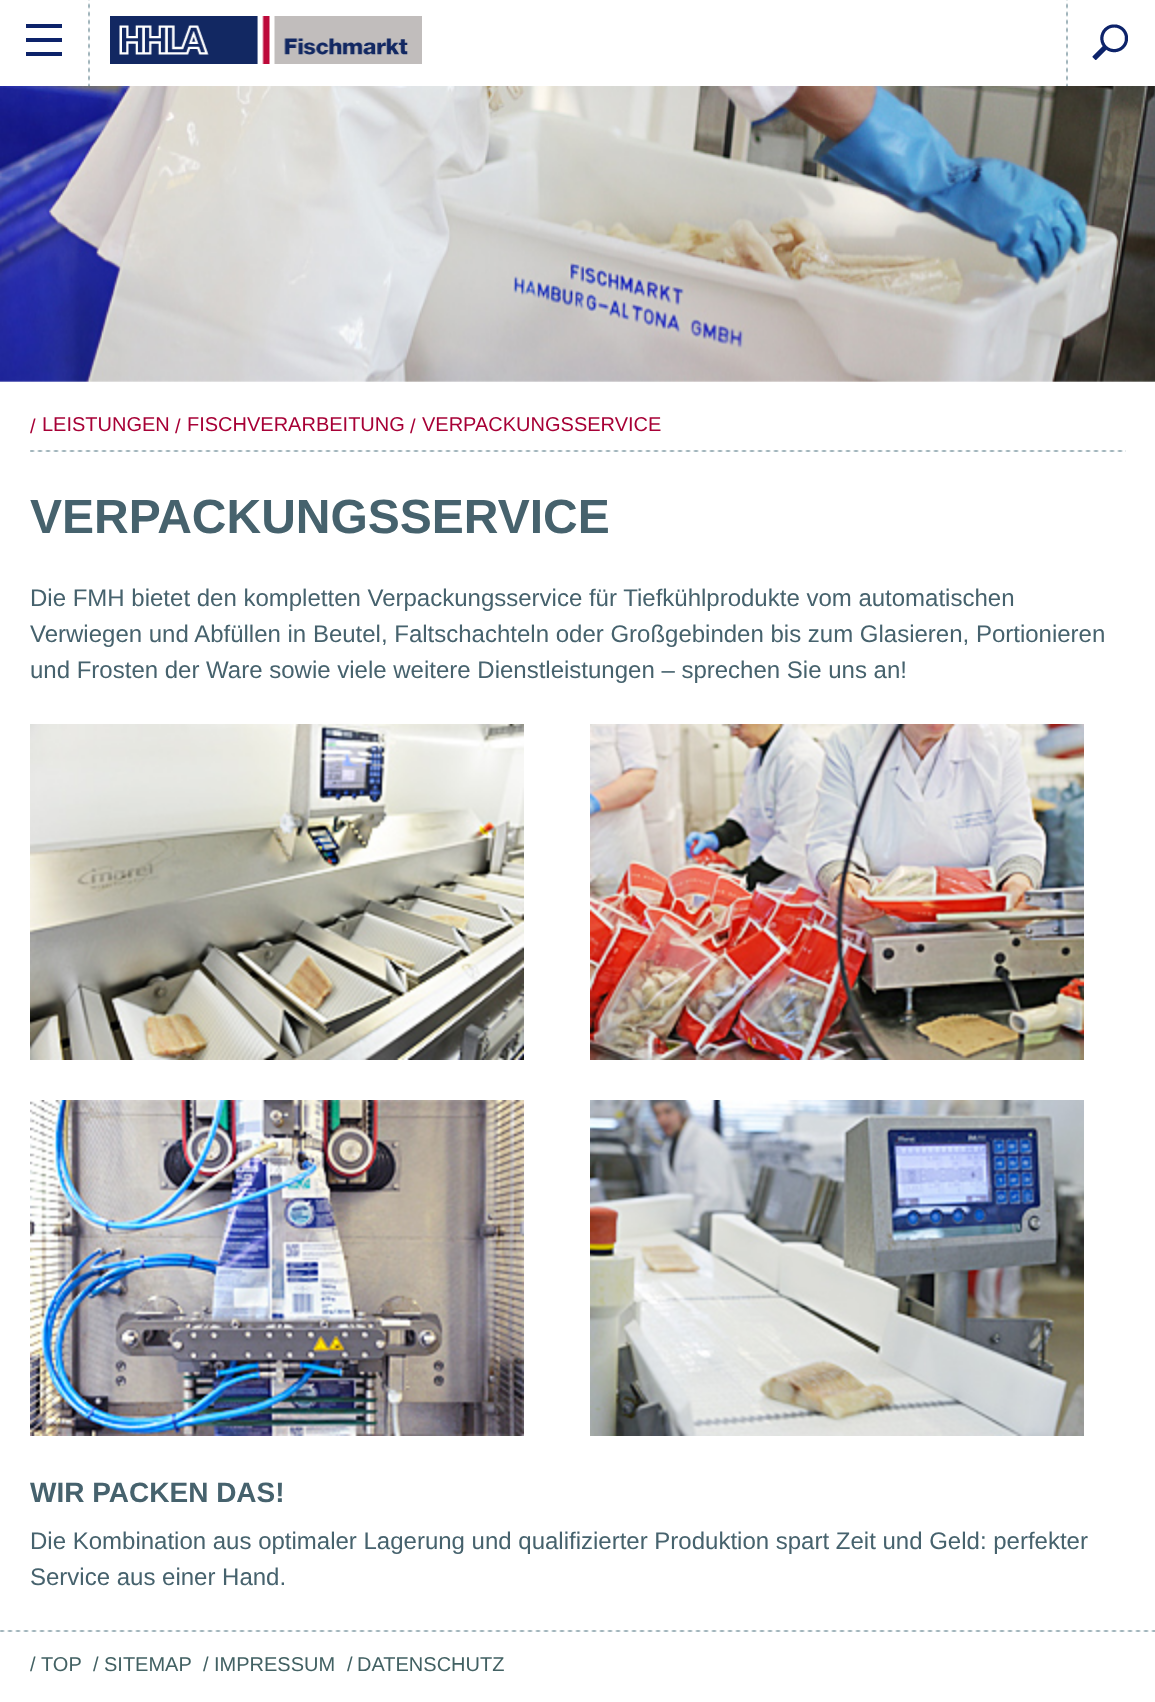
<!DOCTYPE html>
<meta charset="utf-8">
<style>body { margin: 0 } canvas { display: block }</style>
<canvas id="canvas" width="1155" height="1702"></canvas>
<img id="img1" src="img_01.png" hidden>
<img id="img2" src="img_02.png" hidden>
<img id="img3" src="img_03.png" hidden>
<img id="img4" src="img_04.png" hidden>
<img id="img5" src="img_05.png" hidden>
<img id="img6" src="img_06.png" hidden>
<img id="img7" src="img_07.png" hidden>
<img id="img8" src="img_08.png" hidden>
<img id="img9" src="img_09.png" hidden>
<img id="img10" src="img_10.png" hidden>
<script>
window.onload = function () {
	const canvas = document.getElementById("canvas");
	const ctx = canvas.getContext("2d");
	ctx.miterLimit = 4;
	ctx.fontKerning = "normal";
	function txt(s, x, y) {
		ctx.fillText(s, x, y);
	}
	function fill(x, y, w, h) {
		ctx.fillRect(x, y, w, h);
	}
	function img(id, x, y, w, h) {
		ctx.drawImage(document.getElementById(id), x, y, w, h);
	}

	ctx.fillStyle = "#FFFFFF";
	fill(0, 0, 1155, 1702);
	img("img1", 88, 0, 2, 86);
	ctx.fillStyle = "#0D236A";
	fill(26, 52, 36, 4);
	fill(26, 38, 36, 4);
	fill(26, 24, 36, 4);
	img("img2", 110, 16, 312, 48);
	img("img1", 1066, 0, 2, 86);
	img("img3", 1092, 24, 36, 36);
	img("img4", 0, 86, 1155, 296);
	img("img5", 30, 450, 1096, 2);
	img("img6", 30, 724, 494, 336);
	img("img7", 590, 724, 494, 336);
	img("img8", 30, 1100, 494, 336);
	img("img9", 590, 1100, 494, 336);
	img("img10", 0, 1630, 1155, 2);
	ctx.font = "20px Liberation Sans";
	ctx.fillStyle = "#A70036";
	txt("/", 30, 433);
	txt("LEISTUNGEN", 42, 431);
	txt("/", 175, 433);
	txt("FISCHVERARBEITUNG", 187, 431);
	txt("/", 410, 433);
	txt("VERPACKUNGSSERVICE", 422, 431);
	ctx.font = "bold 48px Liberation Sans";
	ctx.fillStyle = "#46626D";
	txt("VERPACKUNGSSERVICE", 30, 533);
	ctx.font = "24px Liberation Sans";
	txt("Die FMH bietet den kompletten Verpackungsservice für Tiefkühlprodukte vom automatischen", 30, 606);
	txt("Verwiegen und Abfüllen in Beutel, Faltschachteln oder Großgebinden bis zum Glasieren, Portionieren", 30, 642);
	txt("und Frosten der Ware sowie viele weitere Dienstleistungen – sprechen Sie uns an!", 30, 678);
	ctx.font = "bold 28px Liberation Sans";
	txt("WIR PACKEN DAS!", 30, 1502);
	ctx.font = "24px Liberation Sans";
	txt("Die Kombination aus optimaler Lagerung und qualifizierter Produktion spart Zeit und Geld: perfekter", 30, 1549);
	txt("Service aus einer Hand.", 30, 1585);
	ctx.font = "20px Liberation Sans";
	ctx.fillStyle = "#426163";
	txt("/", 30, 1671);
	txt("TOP", 41, 1671);
	txt("/", 93, 1671);
	txt("SITEMAP", 104, 1671);
	txt("/", 203, 1671);
	txt("IMPRESSUM", 214, 1671);
	txt("/", 347, 1671);
	txt("DATENSCHUTZ", 357, 1671);
};
</script>
